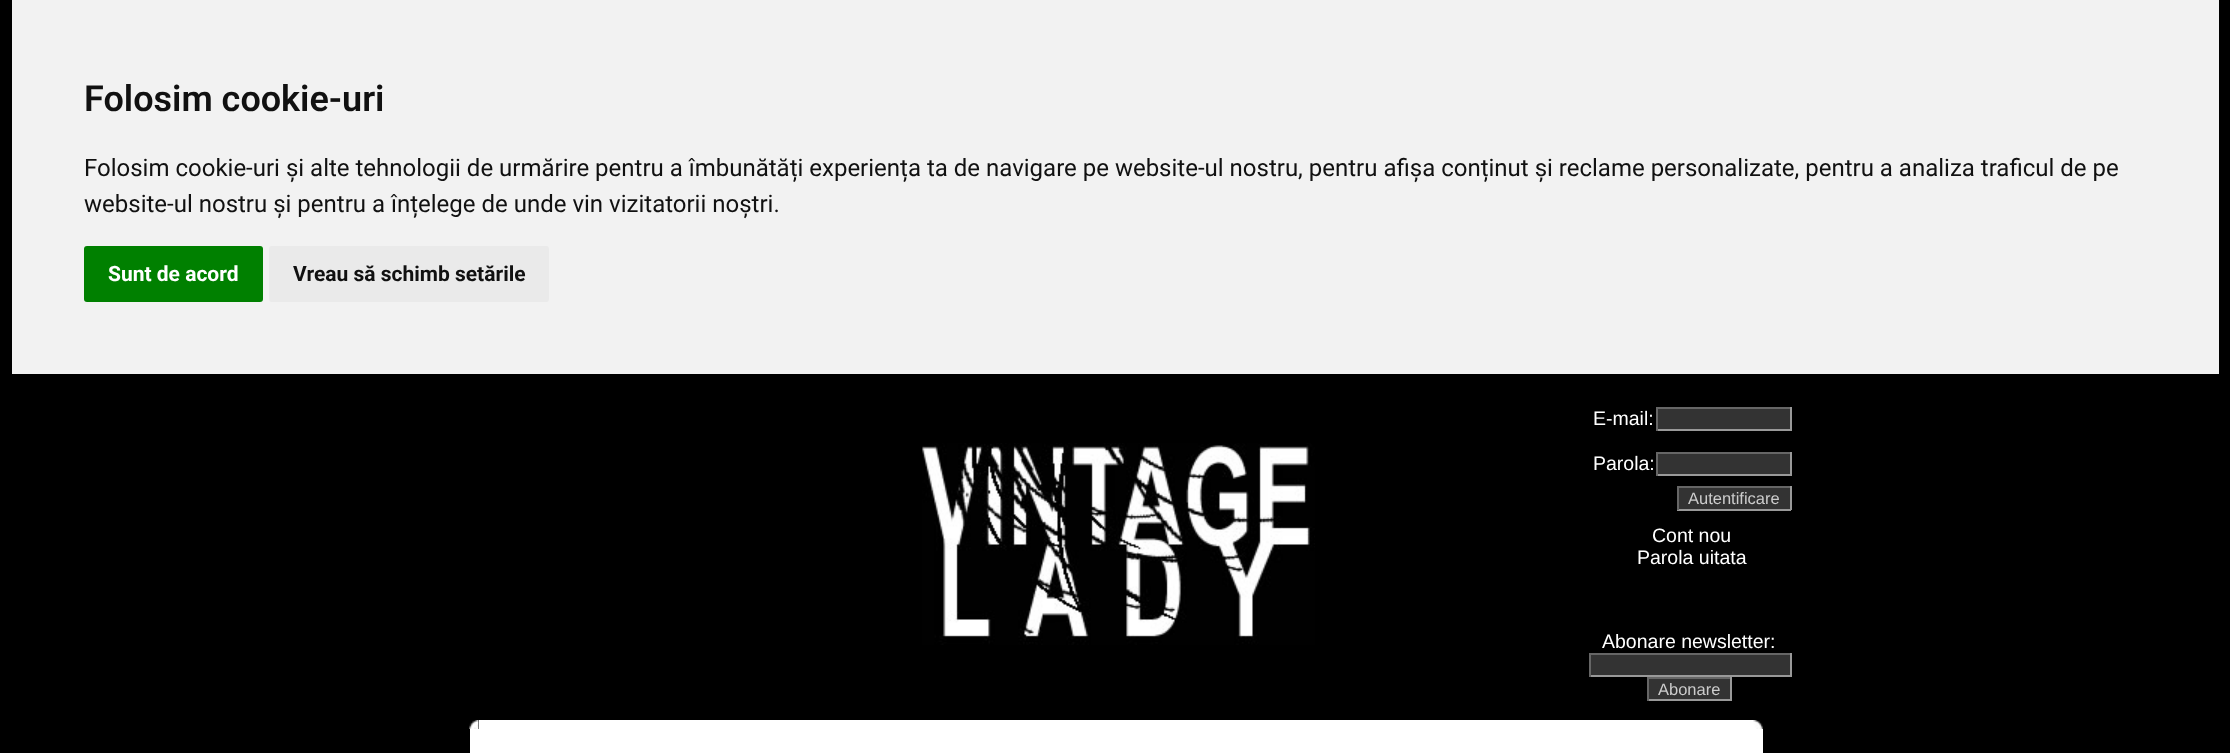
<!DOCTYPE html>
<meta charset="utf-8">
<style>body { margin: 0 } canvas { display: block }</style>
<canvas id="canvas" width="2230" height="753"></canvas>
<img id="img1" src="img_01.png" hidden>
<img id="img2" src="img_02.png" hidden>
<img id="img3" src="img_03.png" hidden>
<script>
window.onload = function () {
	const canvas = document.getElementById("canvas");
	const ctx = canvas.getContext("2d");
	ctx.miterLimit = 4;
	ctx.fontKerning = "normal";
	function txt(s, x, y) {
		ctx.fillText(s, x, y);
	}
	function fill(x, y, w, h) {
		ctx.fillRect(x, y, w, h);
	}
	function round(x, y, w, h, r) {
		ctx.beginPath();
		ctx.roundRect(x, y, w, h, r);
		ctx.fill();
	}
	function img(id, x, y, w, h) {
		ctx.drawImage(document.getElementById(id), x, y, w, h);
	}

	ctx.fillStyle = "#000000";
	fill(0, 0, 2230, 753);
	ctx.fillStyle = "#F2F2F2";
	fill(12, 0, 2207, 374);
	ctx.fillStyle = "#008000";
	round(84, 246, 179, 56, 3);
	ctx.fillStyle = "#EAEAEA";
	round(269, 246, 280, 56, 3);
	img("img1", 922, 443, 393, 202);
	ctx.fillStyle = "#333333";
	fill(1658, 409, 132, 20);
	ctx.fillStyle = "#666666";
	fill(1656, 407, 135, 2);
	ctx.fillStyle = "#999999";
	fill(1790, 407, 2, 24);
	fill(1656, 429, 135, 2);
	ctx.fillStyle = "#666666";
	fill(1656, 407, 2, 24);
	ctx.fillStyle = "#333333";
	fill(1658, 454, 132, 20);
	ctx.fillStyle = "#666666";
	fill(1656, 452, 135, 2);
	ctx.fillStyle = "#999999";
	fill(1790, 452, 2, 24);
	fill(1656, 474, 135, 2);
	ctx.fillStyle = "#666666";
	fill(1656, 452, 2, 24);
	ctx.fillStyle = "#333333";
	fill(1679, 488, 111, 21);
	ctx.fillStyle = "#666666";
	fill(1677, 486, 114, 2);
	ctx.fillStyle = "#999999";
	fill(1790, 486, 2, 24);
	fill(1677, 509, 114, 2);
	ctx.fillStyle = "#666666";
	fill(1677, 486, 2, 24);
	ctx.fillStyle = "#333333";
	fill(1591, 655, 199, 20);
	ctx.fillStyle = "#666666";
	fill(1589, 653, 202, 2);
	ctx.fillStyle = "#999999";
	fill(1790, 653, 2, 24);
	fill(1589, 675, 202, 2);
	ctx.fillStyle = "#666666";
	fill(1589, 653, 2, 24);
	ctx.fillStyle = "#333333";
	fill(1649, 679, 81, 20);
	ctx.fillStyle = "#666666";
	fill(1647, 677, 84, 2);
	ctx.fillStyle = "#999999";
	fill(1730, 677, 2, 24);
	fill(1647, 699, 84, 2);
	ctx.fillStyle = "#666666";
	fill(1647, 677, 2, 24);
	img("img2", 469, 720, 10, 9);
	ctx.fillStyle = "#FFFFFF";
	fill(479, 720, 1275, 9);
	img("img3", 1753, 720, 10, 9);
	fill(470, 729, 1293, 24);
	ctx.font = "600 36px Roboto";
	ctx.fillStyle = "#111111";
	txt("Folosim cookie-uri", 84, 111);
	ctx.font = "24px Roboto";
	txt("Folosim cookie-uri și alte tehnologii de urmărire pentru a îmbunătăți experiența ta de navigare pe website-ul nostru, pentru afișa conținut și reclame personalizate, pentru a analiza traficul de pe", 84, 176);
	txt("website-ul nostru și pentru a înțelege de unde vin vizitatorii noștri.", 84, 212);
	ctx.font = "bold 21px Roboto";
	ctx.fillStyle = "#FFFFFF";
	txt("Sunt de acord", 108, 281);
	ctx.fillStyle = "#111111";
	txt("Vreau să schimb setările", 293, 281);
	ctx.font = "19.5px Liberation Sans";
	ctx.fillStyle = "#FFFFFF";
	txt("E-mail:", 1593, 425);
	txt("Parola:", 1593, 470);
	ctx.font = "16.5px Liberation Sans";
	ctx.fillStyle = "#CCCCCC";
	txt("Autentificare", 1688, 504);
	ctx.font = "19.5px Liberation Sans";
	ctx.fillStyle = "#FFFFFF";
	txt("Cont nou", 1652, 542);
	txt("Parola uitata", 1637, 564);
	txt("Abonare newsletter:", 1602, 648);
	ctx.font = "16.5px Liberation Sans";
	ctx.fillStyle = "#CCCCCC";
	txt("Abonare", 1658, 695);
};
</script>
